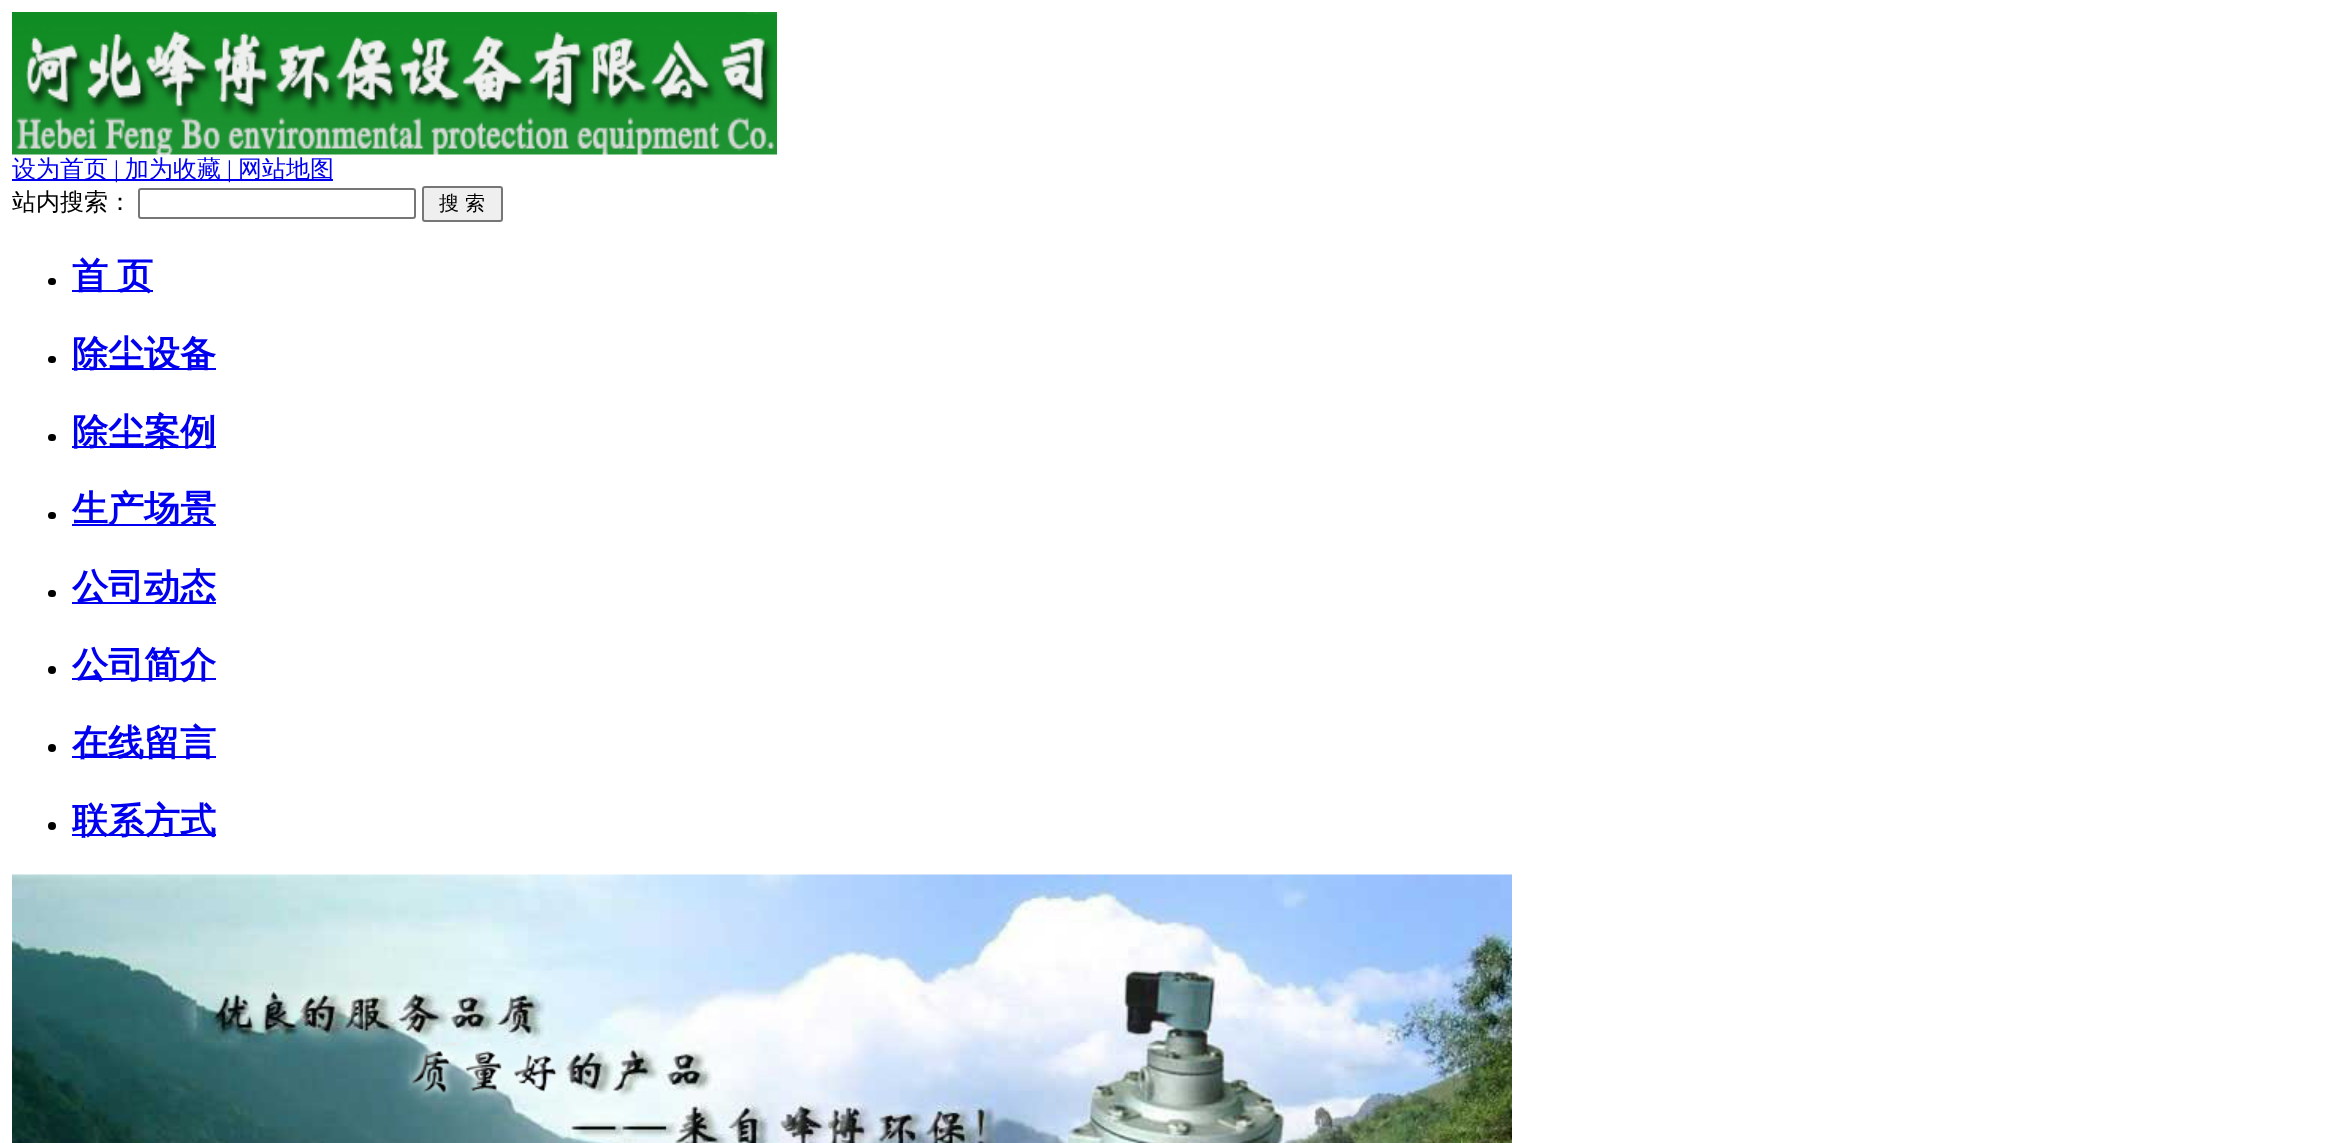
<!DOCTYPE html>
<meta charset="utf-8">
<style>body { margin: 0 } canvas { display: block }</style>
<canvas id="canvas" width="2333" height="1143"></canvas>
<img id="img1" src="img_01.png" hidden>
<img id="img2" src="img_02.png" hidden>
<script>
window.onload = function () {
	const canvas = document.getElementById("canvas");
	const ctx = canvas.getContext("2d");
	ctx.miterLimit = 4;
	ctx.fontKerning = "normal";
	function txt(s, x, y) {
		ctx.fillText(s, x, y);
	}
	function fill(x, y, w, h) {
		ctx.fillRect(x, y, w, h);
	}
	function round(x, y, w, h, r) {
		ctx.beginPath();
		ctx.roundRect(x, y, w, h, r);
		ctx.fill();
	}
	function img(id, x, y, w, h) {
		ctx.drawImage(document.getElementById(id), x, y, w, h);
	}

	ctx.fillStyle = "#FFFFFF";
	fill(0, 0, 2333, 1143);
	img("img1", 12, 12, 765, 143);
	ctx.fillStyle = "#0000EE";
	fill(12, 179, 321, 2);
	ctx.beginPath();
	ctx.roundRect(139, 189, 276, 29, 2);
	ctx.strokeStyle = "#767676";
	ctx.lineWidth = 2;
	ctx.stroke();
	ctx.fillStyle = "#EFEFEF";
	ctx.beginPath();
	ctx.roundRect(423, 187, 79, 34, 2);
	ctx.fill();
	ctx.stroke();
	ctx.fillStyle = "#000000";
	round(48, 278, 8, 7, 3.5);
	ctx.fillStyle = "#0000EE";
	fill(72, 290, 81, 2);
	ctx.fillStyle = "#000000";
	round(48, 356, 8, 7, 3.5);
	ctx.fillStyle = "#0000EE";
	fill(72, 368, 144, 2);
	ctx.fillStyle = "#000000";
	round(48, 434, 8, 7, 3.5);
	ctx.fillStyle = "#0000EE";
	fill(72, 446, 144, 2);
	ctx.fillStyle = "#000000";
	round(48, 512, 8, 7, 3.5);
	ctx.fillStyle = "#0000EE";
	fill(72, 524, 144, 2);
	ctx.fillStyle = "#000000";
	round(48, 590, 8, 7, 3.5);
	ctx.fillStyle = "#0000EE";
	fill(72, 602, 144, 2);
	ctx.fillStyle = "#000000";
	ctx.beginPath();
	ctx.arc(52, 670, 4, 0, Math.PI * 2);
	ctx.fill();
	ctx.fillStyle = "#0000EE";
	fill(72, 678, 144, 2);
	ctx.fillStyle = "#000000";
	ctx.beginPath();
	ctx.arc(52, 748, 4, 0, Math.PI * 2);
	ctx.fill();
	ctx.fillStyle = "#0000EE";
	fill(72, 756, 144, 2);
	ctx.fillStyle = "#000000";
	ctx.beginPath();
	ctx.arc(52, 826, 4, 0, Math.PI * 2);
	ctx.fill();
	ctx.fillStyle = "#0000EE";
	fill(72, 834, 144, 2);
	img("img2", 12, 874, 1500, 269);
	ctx.font = "500 24px WenQuanYi Zen Hei";
	txt("设为首页", 12, 177);
	ctx.font = "24px Liberation Serif";
	txt("|", 114, 177);
	ctx.font = "500 24px WenQuanYi Zen Hei";
	txt("加为收藏", 125, 177);
	ctx.font = "24px Liberation Serif";
	txt("|", 227, 177);
	ctx.font = "500 24px WenQuanYi Zen Hei";
	txt("网站地图", 238, 177);
	ctx.fillStyle = "#000000";
	txt("站内搜索：", 12, 210);
	ctx.font = "500 20px WenQuanYi Zen Hei";
	txt("搜 索", 439, 210);
	ctx.font = "bold 36px WenQuanYi Zen Hei";
	ctx.fillStyle = "#0000EE";
	txt("首", 72, 288);
	txt("页", 117, 288);
	txt("除尘设备", 72, 366);
	txt("除尘案例", 72, 444);
	txt("生产场景", 72, 521);
	txt("公司动态", 72, 599);
	txt("公司简介", 72, 677);
	txt("在线留言", 72, 755);
	txt("联系方式", 72, 833);
};
</script>
